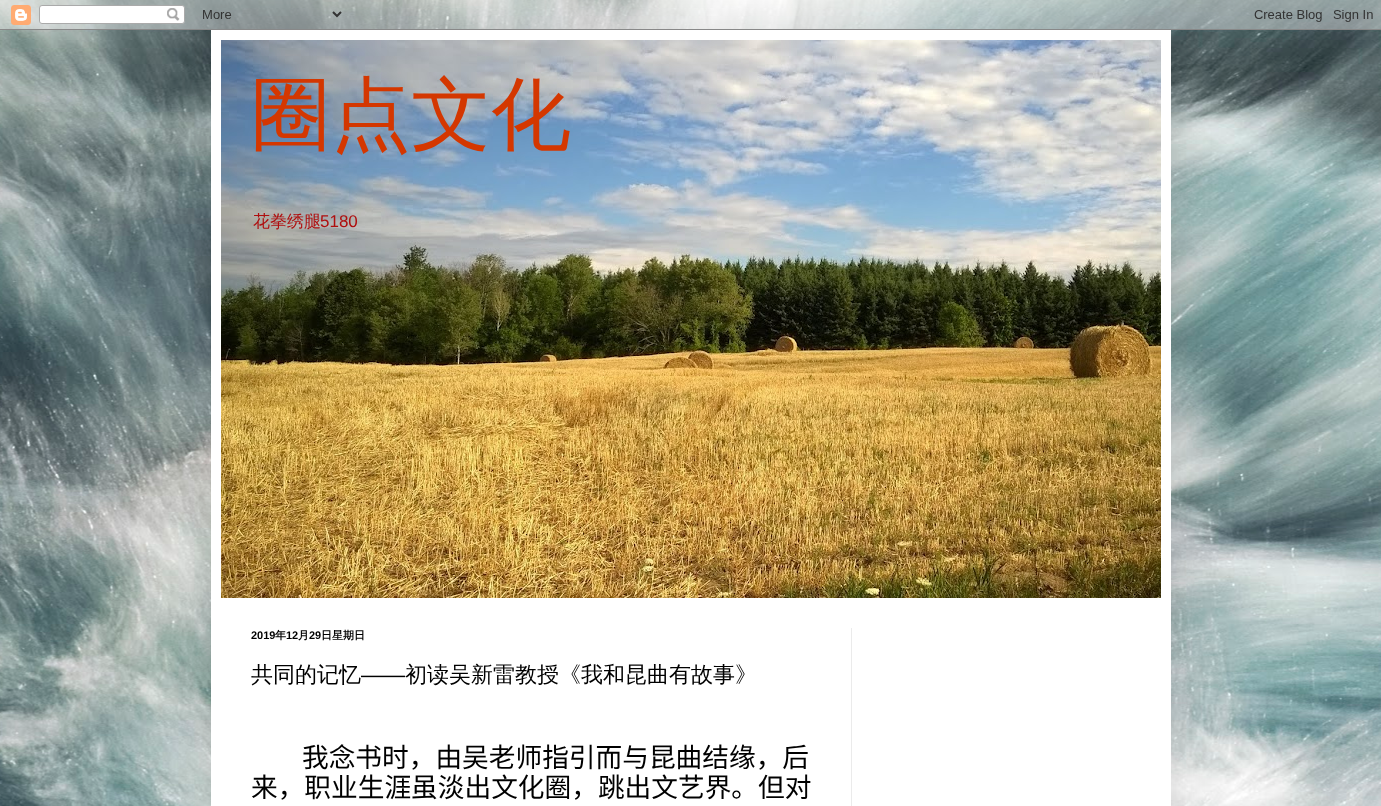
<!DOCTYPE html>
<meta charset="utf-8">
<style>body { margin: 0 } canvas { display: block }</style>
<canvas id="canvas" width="1381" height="806"></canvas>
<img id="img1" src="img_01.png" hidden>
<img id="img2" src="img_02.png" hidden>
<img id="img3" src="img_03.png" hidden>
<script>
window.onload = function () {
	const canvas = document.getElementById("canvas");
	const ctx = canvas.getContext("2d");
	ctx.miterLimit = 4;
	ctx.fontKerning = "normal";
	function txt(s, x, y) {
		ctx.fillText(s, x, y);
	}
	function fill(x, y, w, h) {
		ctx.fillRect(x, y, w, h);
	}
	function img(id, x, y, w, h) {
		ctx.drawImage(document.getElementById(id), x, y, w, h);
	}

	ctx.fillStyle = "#FFFFFF";
	fill(0, 0, 1381, 806);
	img("img1", 0, 0, 1381, 806);
	ctx.fillStyle = "rgba(0, 0, 0, 0.15)";
	ctx.filter = "blur(20px)";
	ctx.beginPath();
	ctx.rect(211, 30, 960, 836);
	ctx.fill();
	ctx.filter = "none";
	img("img2", 0, 0, 1381, 30);
	ctx.fillStyle = "#FFFFFF";
	fill(211, 30, 960, 776);
	img("img3", 221, 40, 940, 558);
	ctx.fillStyle = "#EBEBEB";
	fill(851, 628, 1, 178);
	ctx.font = "500 80px WenQuanYi Zen Hei";
	ctx.fillStyle = "#D43700";
	txt("圈点文化", 251, 142);
	ctx.font = "500 17px WenQuanYi Zen Hei";
	ctx.fillStyle = "#AF0E0E";
	txt("花拳绣腿", 253, 227);
	ctx.font = "17px Liberation Sans";
	txt("5180", 320, 227);
	ctx.font = "bold 11px Liberation Sans";
	ctx.fillStyle = "#000000";
	txt("2019", 251, 639);
	ctx.font = "bold 11px WenQuanYi Zen Hei";
	txt("年", 275, 639);
	ctx.font = "bold 11px Liberation Sans";
	txt("12", 286, 639);
	ctx.font = "bold 11px WenQuanYi Zen Hei";
	txt("月", 298, 639);
	ctx.font = "bold 11px Liberation Sans";
	txt("29", 309, 639);
	ctx.font = "bold 11px WenQuanYi Zen Hei";
	txt("日星期日", 321, 639);
	ctx.font = "500 22px WenQuanYi Zen Hei";
	txt("共同的记忆", 251, 682);
	ctx.font = "22px Liberation Sans";
	txt("——", 361, 682);
	ctx.font = "500 22px WenQuanYi Zen Hei";
	txt("初读吴新雷教授《我和昆曲有故事》", 405, 682);
	ctx.font = "26.7px Noto Sans CJK SC";
	txt("我念书时，由吴老师指引而与昆曲结缘，后", 302, 767);
	txt("来，职业生涯虽淡出文化圈，跳出文艺界。但对", 251, 797);
};
</script>
